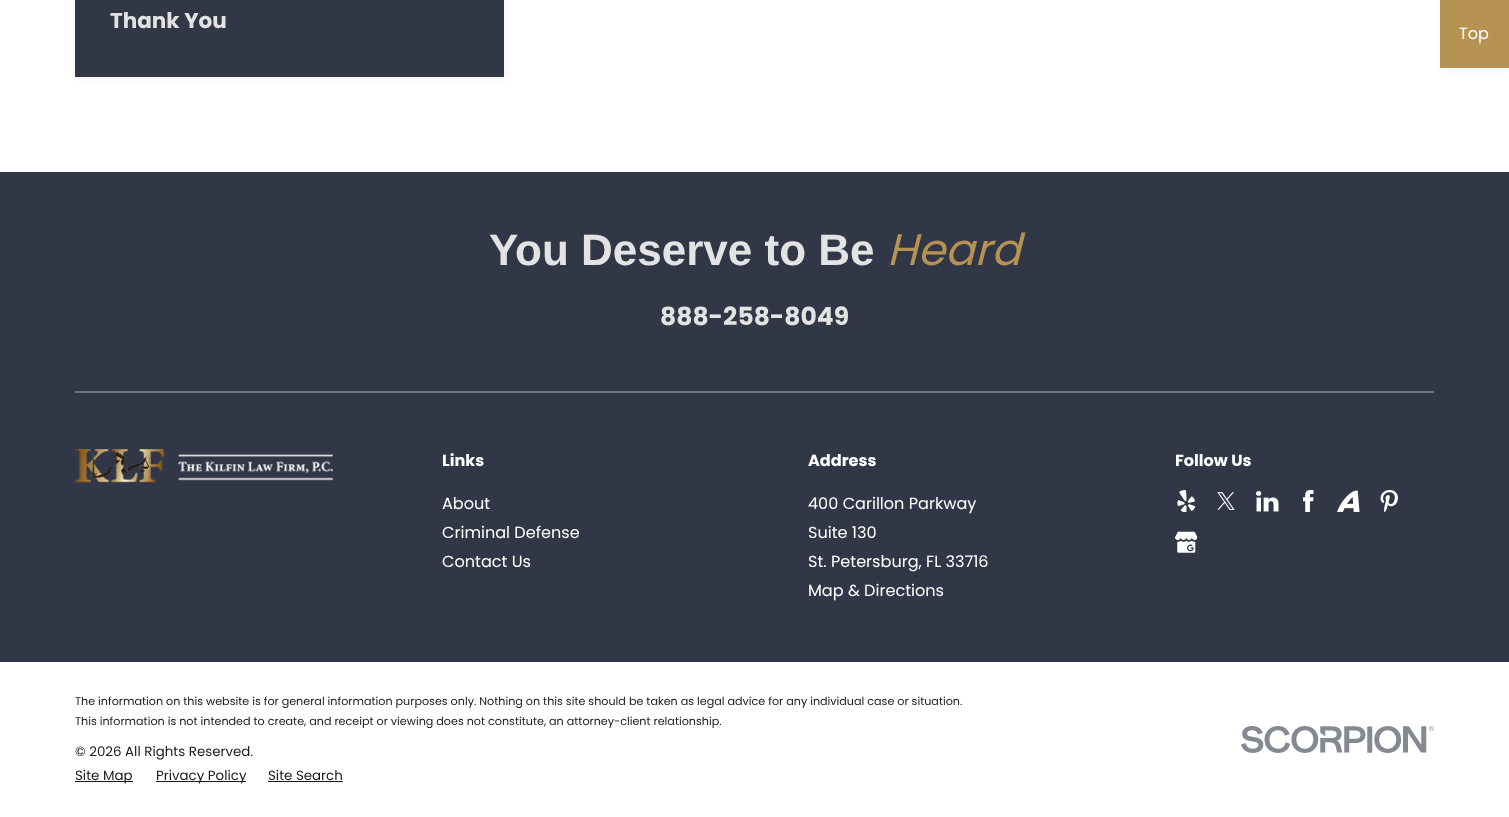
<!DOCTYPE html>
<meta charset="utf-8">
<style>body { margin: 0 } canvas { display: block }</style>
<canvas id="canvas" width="1509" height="817"></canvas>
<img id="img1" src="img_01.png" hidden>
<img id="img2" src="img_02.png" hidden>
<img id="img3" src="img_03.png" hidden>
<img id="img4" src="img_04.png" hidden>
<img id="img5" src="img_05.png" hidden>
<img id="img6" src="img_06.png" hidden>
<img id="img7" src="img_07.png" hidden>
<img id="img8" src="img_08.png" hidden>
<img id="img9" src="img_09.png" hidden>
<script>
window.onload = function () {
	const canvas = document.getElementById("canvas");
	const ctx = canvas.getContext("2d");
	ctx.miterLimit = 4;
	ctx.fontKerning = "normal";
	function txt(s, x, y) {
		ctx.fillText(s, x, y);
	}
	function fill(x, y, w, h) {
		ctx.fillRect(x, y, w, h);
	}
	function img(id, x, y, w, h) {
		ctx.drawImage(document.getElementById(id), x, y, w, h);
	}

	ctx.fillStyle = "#FFFFFF";
	fill(0, 0, 1509, 817);
	ctx.fillStyle = "rgba(0, 0, 0, 0.05)";
	ctx.filter = "blur(4px)";
	ctx.beginPath();
	ctx.rect(77, -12, 429, 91);
	ctx.fill();
	ctx.filter = "none";
	ctx.fillStyle = "#313746";
	fill(75, 0, 429, 77);
	ctx.fillStyle = "rgba(0, 0, 0, 0.05)";
	ctx.filter = "blur(4px)";
	ctx.beginPath();
	ctx.rect(1442, 2, 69, 68);
	ctx.fill();
	ctx.filter = "none";
	ctx.fillStyle = "#B69253";
	fill(1440, 0, 69, 68);
	ctx.fillStyle = "#313746";
	fill(0, 172, 1509, 490);
	ctx.fillStyle = "#6F737E";
	fill(75, 391, 1359, 2);
	img("img1", 75, 449, 258, 34);
	img("img2", 1177, 490, 19, 22);
	img("img3", 1217, 492, 18, 18);
	img("img4", 1256, 491, 23, 21);
	img("img5", 1303, 490, 11, 22);
	img("img6", 1337, 490, 23, 22);
	img("img7", 1380, 490, 18, 22);
	img("img8", 1175, 531, 22, 22);
	ctx.fillStyle = "#191919";
	fill(75, 781, 58, 1);
	fill(156, 781, 90, 1);
	fill(268, 781, 75, 1);
	img("img9", 1241, 726, 193, 27);
	ctx.font = "bold 21.5px Poppins";
	ctx.fillStyle = "#E3E3E3";
	txt("Thank You", 110, 28);
	ctx.font = "16.1px Poppins";
	ctx.fillStyle = "#FFFFFF";
	txt("Top", 1459, 39);
	ctx.font = "bold 44px Liberation Sans";
	ctx.fillStyle = "#E3E3E3";
	txt("You Deserve to Be", 489, 265);
	ctx.font = "italic 44px Poppins";
	ctx.fillStyle = "#B69253";
	txt("Heard", 887, 265);
	ctx.font = "bold 25px Poppins";
	ctx.fillStyle = "#E3E3E3";
	txt("888-258-8049", 660, 325);
	ctx.font = "bold 16.1px Poppins";
	ctx.fillStyle = "#FFFFFF";
	txt("Links", 442, 466);
	ctx.font = "16.1px Poppins";
	txt("About", 442, 509);
	txt("Criminal Defense", 442, 538);
	txt("Contact Us", 442, 567);
	ctx.font = "bold 16.1px Poppins";
	txt("Address", 808, 466);
	ctx.font = "16.1px Poppins";
	txt("400 Carillon Parkway", 808, 509);
	txt("Suite 130", 808, 538);
	txt("St. Petersburg, FL 33716", 808, 567);
	txt("Map & Directions", 808, 596);
	ctx.font = "bold 16.1px Poppins";
	txt("Follow Us", 1175, 466);
	ctx.font = "11.17px Poppins";
	ctx.fillStyle = "#191919";
	txt("The information on this website is for general information purposes only. Nothing on this site should be taken as legal advice for any individual case or situation.", 75, 705);
	txt("This information is not intended to create, and receipt or viewing does not constitute, an attorney-client relationship.", 75, 725);
	ctx.font = "13.4px Poppins";
	txt("© 2026 All Rights Reserved.", 75, 756);
	txt("Site Map", 75, 780);
	txt("Privacy Policy", 156, 780);
	txt("Site Search", 268, 780);
};
</script>
